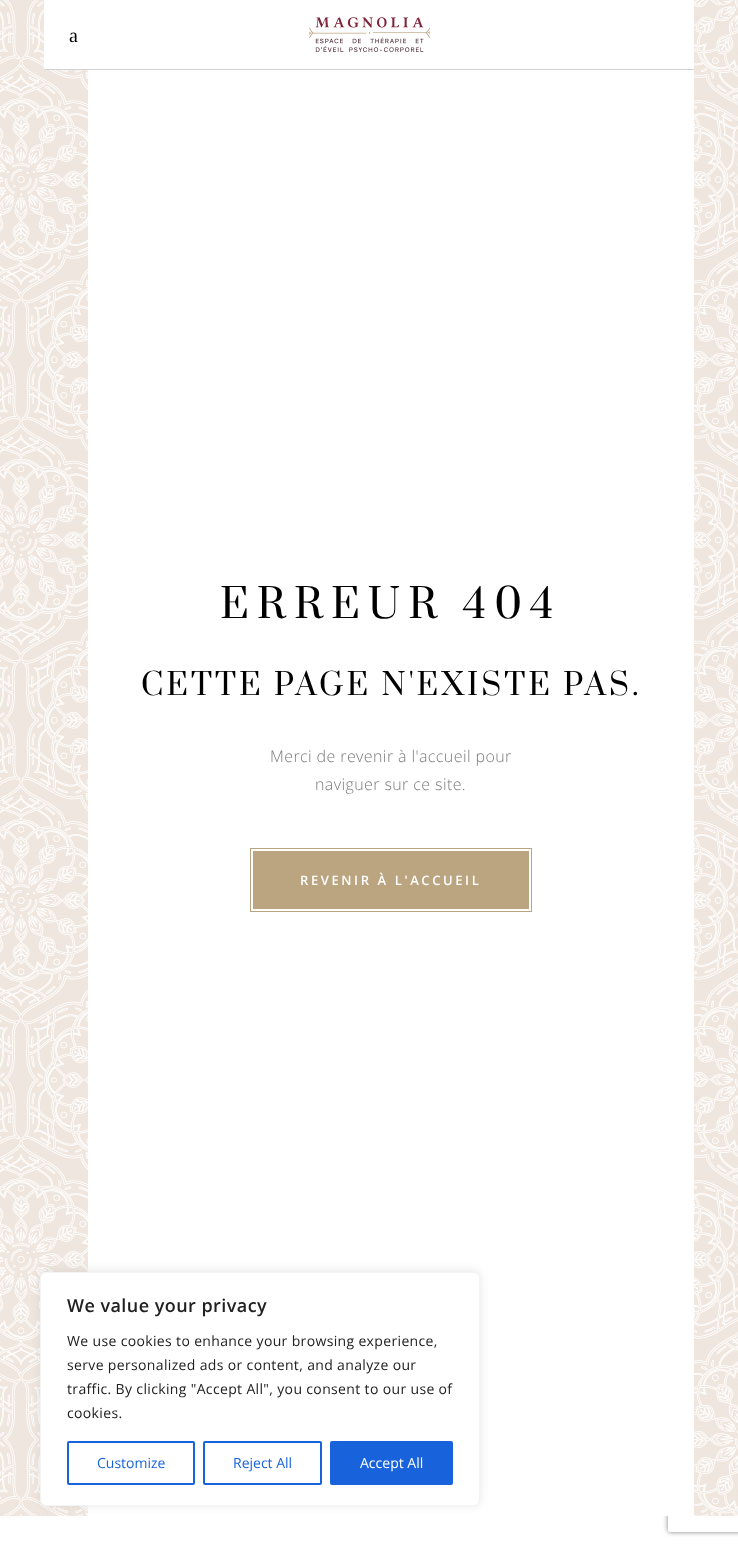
<!DOCTYPE html>
<meta charset="utf-8">
<style>body { margin: 0 } canvas { display: block }</style>
<canvas id="canvas" width="738" height="1546"></canvas>
<img id="img1" src="img_01.png" hidden>
<img id="img2" src="img_02.png" hidden>
<script>
window.onload = function () {
	const canvas = document.getElementById("canvas");
	const ctx = canvas.getContext("2d");
	ctx.miterLimit = 4;
	ctx.fontKerning = "normal";
	function txt(s, x, y) {
		ctx.fillText(s, x, y);
	}
	function fill(x, y, w, h) {
		ctx.fillRect(x, y, w, h);
	}
	function img(id, x, y, w, h) {
		ctx.drawImage(document.getElementById(id), x, y, w, h);
	}

	ctx.fillStyle = "#FFFFFF";
	fill(0, 0, 738, 1546);
	ctx.save();
	ctx.beginPath();
	ctx.moveTo(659, 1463);
	ctx.lineTo(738, 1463);
	ctx.lineTo(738, 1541);
	ctx.lineTo(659, 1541);
	ctx.closePath();
	ctx.moveTo(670, 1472);
	ctx.lineTo(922, 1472);
	ctx.bezierCurveTo(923, 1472, 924, 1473, 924, 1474);
	ctx.lineTo(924, 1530);
	ctx.bezierCurveTo(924, 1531, 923, 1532, 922, 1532);
	ctx.lineTo(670, 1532);
	ctx.bezierCurveTo(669, 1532, 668, 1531, 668, 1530);
	ctx.lineTo(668, 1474);
	ctx.bezierCurveTo(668, 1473, 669, 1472, 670, 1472);
	ctx.closePath();
	ctx.clip("evenodd");
	ctx.fillStyle = "#808080";
	ctx.filter = "blur(2.5px)";
	ctx.beginPath();
	ctx.roundRect(668, 1472, 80, 60, 2);
	ctx.fill();
	ctx.filter = "none";
	ctx.restore();
	img("img1", 0, 0, 738, 1516);
	fill(44, 0, 650, 69);
	ctx.fillStyle = "#D1D3D4";
	fill(44, 69, 650, 1);
	img("img2", 309, 17, 121, 35);
	ctx.fillStyle = "#FFFFFF";
	fill(88, 70, 606, 1446);
	ctx.fillStyle = "#BBA580";
	fill(253, 851, 276, 58);
	fill(250, 848, 282, 1);
	fill(531, 848, 1, 64);
	fill(250, 911, 282, 1);
	fill(250, 848, 1, 64);
	ctx.fillStyle = "rgba(172, 171, 171, 0.3)";
	ctx.filter = "blur(5px)";
	ctx.beginPath();
	ctx.roundRect(40, 1271, 440, 234, 6);
	ctx.fill();
	ctx.filter = "none";
	ctx.fillStyle = "#FFFFFF";
	ctx.beginPath();
	ctx.roundRect(40.5, 1272.5, 439, 233, 5.5);
	ctx.fill();
	ctx.strokeStyle = "#F4F4F4";
	ctx.stroke();
	ctx.beginPath();
	ctx.roundRect(68, 1442, 126, 42, 1);
	ctx.strokeStyle = "#1863DC";
	ctx.lineWidth = 2;
	ctx.stroke();
	ctx.beginPath();
	ctx.roundRect(204, 1442, 117, 42, 1);
	ctx.stroke();
	ctx.fillStyle = "#1863DC";
	ctx.beginPath();
	ctx.roundRect(331, 1442, 121, 42, 1);
	ctx.fill();
	ctx.stroke();
	ctx.font = "20px Liberation Serif";
	ctx.fillStyle = "#000000";
	txt("a", 69, 42);
	ctx.letterSpacing = "8px";
	ctx.font = "40px Prata";
	txt("ERREUR 404", 220, 618);
	ctx.letterSpacing = "3px";
	ctx.font = "30px Prata";
	txt("CETTE PAGE N'EXISTE PAS.", 141, 695);
	ctx.letterSpacing = "0.4px";
	ctx.font = "300 16px Open Sans";
	ctx.fillStyle = "#7C7C7C";
	txt("Merci de revenir à l'accueil pour", 270, 762);
	txt("naviguer sur ce site.", 315, 790);
	ctx.letterSpacing = "2.6px";
	ctx.font = "600 13px Open Sans";
	ctx.fillStyle = "#FFFFFF";
	txt("REVENIR À L'ACCUEIL", 300, 885);
	ctx.letterSpacing = "0.45px";
	ctx.font = "600 18px Open Sans";
	ctx.fillStyle = "#212121";
	txt("We value your privacy", 67, 1312);
	ctx.letterSpacing = "0.35px";
	ctx.font = "14px Open Sans";
	txt("We use cookies to enhance your browsing experience,", 67, 1346);
	txt("serve personalized ads or content, and analyze our", 67, 1370);
	txt("traffic. By clicking \"Accept All\", you consent to our use of", 67, 1394);
	txt("cookies.", 67, 1418);
	ctx.letterSpacing = "0px";
	ctx.fillStyle = "#1863DC";
	txt("Customize", 97, 1468);
	txt("Reject All", 233, 1468);
	ctx.fillStyle = "#FFFFFF";
	txt("Accept All", 360, 1468);
};
</script>
